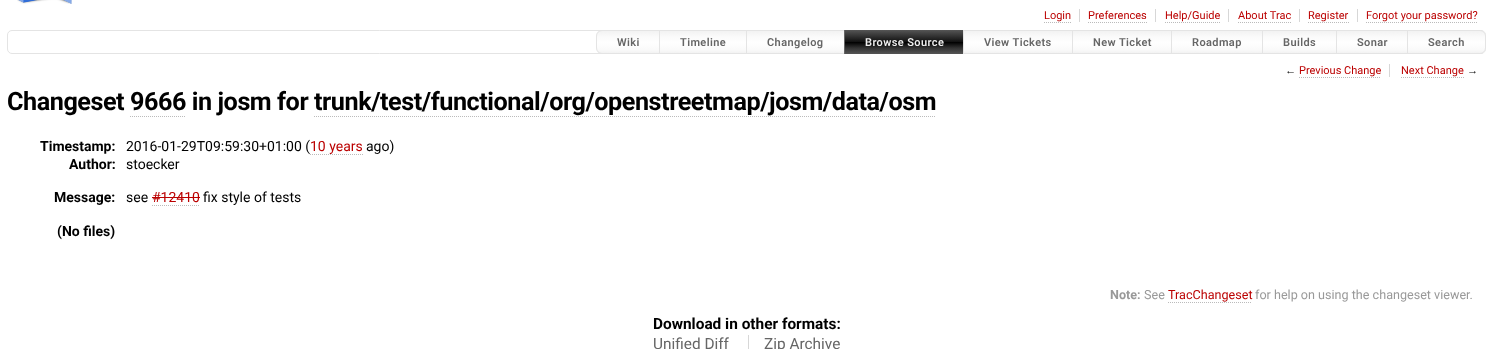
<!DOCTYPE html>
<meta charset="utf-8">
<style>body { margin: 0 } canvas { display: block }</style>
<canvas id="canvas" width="1493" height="349"></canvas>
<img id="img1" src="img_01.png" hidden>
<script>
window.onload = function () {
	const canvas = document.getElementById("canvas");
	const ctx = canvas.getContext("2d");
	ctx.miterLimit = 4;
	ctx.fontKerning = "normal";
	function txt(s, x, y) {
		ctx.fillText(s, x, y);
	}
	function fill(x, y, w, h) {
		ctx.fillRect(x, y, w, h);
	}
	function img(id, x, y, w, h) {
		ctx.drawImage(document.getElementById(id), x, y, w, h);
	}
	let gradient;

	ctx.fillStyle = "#FFFFFF";
	fill(0, 0, 1493, 349);
	img("img1", 17, 0, 55, 4);
	ctx.fillStyle = "#D7D7D7";
	fill(1079, 9, 1, 13);
	ctx.beginPath();
	ctx.moveTo(1044, 22.5);
	ctx.lineTo(1071, 22.5);
	ctx.strokeStyle = "#BBBBBB";
	ctx.setLineDash([1, 1]);
	ctx.stroke();
	fill(1155, 9, 1, 13);
	ctx.beginPath();
	ctx.moveTo(1088, 22.5);
	ctx.lineTo(1147, 22.5);
	ctx.stroke();
	fill(1228, 9, 1, 13);
	ctx.beginPath();
	ctx.moveTo(1165, 22.5);
	ctx.lineTo(1220, 22.5);
	ctx.stroke();
	fill(1299, 9, 1, 13);
	ctx.beginPath();
	ctx.moveTo(1238, 22.5);
	ctx.lineTo(1291, 22.5);
	ctx.stroke();
	fill(1357, 9, 1, 13);
	ctx.beginPath();
	ctx.moveTo(1308, 22.5);
	ctx.lineTo(1349, 22.5);
	ctx.stroke();
	ctx.beginPath();
	ctx.moveTo(1366, 22.5);
	ctx.lineTo(1478, 22.5);
	ctx.stroke();
	ctx.beginPath();
	ctx.roundRect(7.5, 30.5, 1478, 23, 4.5);
	ctx.strokeStyle = "#E4E4E4";
	ctx.setLineDash([]);
	ctx.stroke();
	ctx.save();
	ctx.beginPath();
	ctx.roundRect(596, 30, 65, 24, [6, 0, 0, 6]);
	ctx.clip();
	gradient = ctx.createLinearGradient(629, 31, 629, 53);
	gradient.addColorStop(0, "#F2F2F2");
	gradient.addColorStop(0.25, "#FAFAFA");
	gradient.addColorStop(0.49, "#FEFEFE");
	gradient.addColorStop(0.51, "#FFFFFF");
	gradient.addColorStop(0.85, "#FAFAFA");
	gradient.addColorStop(1, "#F2F2F2");
	ctx.fillStyle = gradient;
	fill(596, 31, 63, 22);
	ctx.restore();
	ctx.beginPath();
	ctx.roundRect(596.5, 30.5, 64, 23, [5.5, 0, 0, 5.5]);
	ctx.stroke();
	gradient = ctx.createLinearGradient(703, 31, 703, 53);
	gradient.addColorStop(0, "#F2F2F2");
	gradient.addColorStop(0.25, "#FAFAFA");
	gradient.addColorStop(0.49, "#FEFEFE");
	gradient.addColorStop(0.51, "#FFFFFF");
	gradient.addColorStop(0.85, "#FAFAFA");
	gradient.addColorStop(1, "#F2F2F2");
	ctx.fillStyle = gradient;
	fill(660, 31, 86, 22);
	ctx.strokeRect(659.5, 30.5, 87, 23);
	gradient = ctx.createLinearGradient(796, 31, 796, 53);
	gradient.addColorStop(0, "#F2F2F2");
	gradient.addColorStop(0.25, "#FAFAFA");
	gradient.addColorStop(0.49, "#FEFEFE");
	gradient.addColorStop(0.51, "#FFFFFF");
	gradient.addColorStop(0.85, "#FAFAFA");
	gradient.addColorStop(1, "#F2F2F2");
	ctx.fillStyle = gradient;
	fill(747, 31, 97, 22);
	ctx.strokeRect(746.5, 30.5, 98, 23);
	ctx.strokeStyle = "#666666";
	ctx.strokeRect(844.5, 30.5, 119, 23);
	gradient = ctx.createLinearGradient(904, 30, 904, 54);
	gradient.addColorStop(0, "#555555");
	gradient.addColorStop(0.25, "#333333");
	gradient.addColorStop(0.49, "#111111");
	gradient.addColorStop(0.51, "#000000");
	gradient.addColorStop(0.75, "#333333");
	gradient.addColorStop(1, "#555555");
	ctx.fillStyle = gradient;
	fill(845, 30, 118, 24);
	gradient = ctx.createLinearGradient(1018, 31, 1018, 53);
	gradient.addColorStop(0, "#F2F2F2");
	gradient.addColorStop(0.25, "#FAFAFA");
	gradient.addColorStop(0.49, "#FEFEFE");
	gradient.addColorStop(0.51, "#FFFFFF");
	gradient.addColorStop(0.85, "#FAFAFA");
	gradient.addColorStop(1, "#F2F2F2");
	ctx.fillStyle = gradient;
	fill(964, 31, 108, 22);
	ctx.strokeStyle = "#E4E4E4";
	ctx.strokeRect(963.5, 30.5, 109, 23);
	gradient = ctx.createLinearGradient(1122, 31, 1122, 53);
	gradient.addColorStop(0, "#F2F2F2");
	gradient.addColorStop(0.25, "#FAFAFA");
	gradient.addColorStop(0.49, "#FEFEFE");
	gradient.addColorStop(0.51, "#FFFFFF");
	gradient.addColorStop(0.85, "#FAFAFA");
	gradient.addColorStop(1, "#F2F2F2");
	ctx.fillStyle = gradient;
	fill(1073, 31, 98, 22);
	ctx.strokeRect(1072.5, 30.5, 99, 23);
	gradient = ctx.createLinearGradient(1217, 31, 1217, 53);
	gradient.addColorStop(0, "#F2F2F2");
	gradient.addColorStop(0.25, "#FAFAFA");
	gradient.addColorStop(0.49, "#FEFEFE");
	gradient.addColorStop(0.51, "#FFFFFF");
	gradient.addColorStop(0.85, "#FAFAFA");
	gradient.addColorStop(1, "#F2F2F2");
	ctx.fillStyle = gradient;
	fill(1172, 31, 90, 22);
	ctx.strokeRect(1171.5, 30.5, 91, 23);
	gradient = ctx.createLinearGradient(1300, 31, 1300, 53);
	gradient.addColorStop(0, "#F2F2F2");
	gradient.addColorStop(0.25, "#FAFAFA");
	gradient.addColorStop(0.49, "#FEFEFE");
	gradient.addColorStop(0.51, "#FFFFFF");
	gradient.addColorStop(0.85, "#FAFAFA");
	gradient.addColorStop(1, "#F2F2F2");
	ctx.fillStyle = gradient;
	fill(1263, 31, 73, 22);
	ctx.strokeRect(1262.5, 30.5, 74, 23);
	gradient = ctx.createLinearGradient(1373, 31, 1373, 53);
	gradient.addColorStop(0, "#F2F2F2");
	gradient.addColorStop(0.25, "#FAFAFA");
	gradient.addColorStop(0.49, "#FEFEFE");
	gradient.addColorStop(0.51, "#FFFFFF");
	gradient.addColorStop(0.85, "#FAFAFA");
	gradient.addColorStop(1, "#F2F2F2");
	ctx.fillStyle = gradient;
	fill(1337, 31, 70, 22);
	ctx.strokeRect(1336.5, 30.5, 72, 23);
	ctx.save();
	ctx.beginPath();
	ctx.roundRect(1407, 30, 79, 24, [0, 6, 6, 0]);
	ctx.clip();
	gradient = ctx.createLinearGradient(1447, 31, 1447, 53);
	gradient.addColorStop(0, "#F2F2F2");
	gradient.addColorStop(0.25, "#FAFAFA");
	gradient.addColorStop(0.49, "#FEFEFE");
	gradient.addColorStop(0.51, "#FFFFFF");
	gradient.addColorStop(0.85, "#FAFAFA");
	gradient.addColorStop(1, "#F2F2F2");
	ctx.fillStyle = gradient;
	fill(1408, 31, 78, 22);
	ctx.restore();
	ctx.beginPath();
	ctx.roundRect(1407.5, 30.5, 78, 23, [0, 5.5, 5.5, 0]);
	ctx.stroke();
	ctx.fillStyle = "#D7D7D7";
	fill(1389, 64, 1, 13);
	ctx.beginPath();
	ctx.moveTo(1299, 77.5);
	ctx.lineTo(1381, 77.5);
	ctx.strokeStyle = "#BBBBBB";
	ctx.setLineDash([1, 1]);
	ctx.stroke();
	ctx.beginPath();
	ctx.moveTo(1401, 77.5);
	ctx.lineTo(1464, 77.5);
	ctx.stroke();
	ctx.beginPath();
	ctx.moveTo(130, 116.5);
	ctx.lineTo(186, 116.5);
	ctx.stroke();
	ctx.beginPath();
	ctx.moveTo(314, 116.5);
	ctx.lineTo(936, 116.5);
	ctx.stroke();
	ctx.beginPath();
	ctx.moveTo(310, 154.5);
	ctx.lineTo(363, 154.5);
	ctx.stroke();
	ctx.beginPath();
	ctx.moveTo(152, 205.5);
	ctx.lineTo(200, 205.5);
	ctx.stroke();
	ctx.fillStyle = "#BB0000";
	fill(152, 197, 48, 1);
	ctx.beginPath();
	ctx.moveTo(1168, 302.5);
	ctx.lineTo(1252, 302.5);
	ctx.stroke();
	ctx.fillStyle = "#D7D7D7";
	fill(748, 335, 1, 14);
	ctx.font = "11px Roboto";
	ctx.fillStyle = "#BB0000";
	txt("Login", 1044, 19);
	txt("Preferences", 1088, 19);
	txt("Help/Guide", 1165, 19);
	txt("About Trac", 1238, 19);
	txt("Register", 1308, 19);
	txt("Forgot your password?", 1366, 19);
	ctx.letterSpacing = "0.4px";
	ctx.font = "600 11px Roboto";
	ctx.fillStyle = "#666666";
	txt("Wiki", 617, 46);
	txt("Timeline", 680, 46);
	txt("Changelog", 767, 46);
	ctx.fillStyle = "#EEEEEE";
	txt("Browse Source", 865, 46);
	ctx.fillStyle = "#666666";
	txt("View Tickets", 984, 46);
	txt("New Ticket", 1093, 46);
	txt("Roadmap", 1192, 46);
	txt("Builds", 1283, 46);
	txt("Sonar", 1357, 46);
	txt("Search", 1428, 46);
	ctx.letterSpacing = "0px";
	ctx.font = "11px Liberation Sans";
	ctx.fillStyle = "#000000";
	txt("←", 1285, 74);
	ctx.font = "11px Roboto";
	ctx.fillStyle = "#BB0000";
	txt("Previous Change", 1299, 74);
	txt("Next Change", 1401, 74);
	ctx.font = "11px Liberation Sans";
	ctx.fillStyle = "#000000";
	txt("→", 1467, 74);
	ctx.letterSpacing = "-0.45px";
	ctx.font = "bold 25.2px Roboto";
	txt("Changeset 9666 in josm for trunk/test/functional/org/openstreetmap/josm/data/osm", 7, 110);
	ctx.letterSpacing = "0px";
	ctx.font = "bold 14px Roboto";
	txt("Timestamp:", 40, 151);
	ctx.font = "14px Roboto";
	txt("2016-01-29T09:59:30+01:00 (", 126, 151);
	ctx.fillStyle = "#BB0000";
	txt("10 years", 310, 151);
	ctx.fillStyle = "#000000";
	txt("ago)", 366, 151);
	ctx.font = "bold 14px Roboto";
	txt("Author:", 69, 169);
	ctx.font = "14px Roboto";
	txt("stoecker", 126, 169);
	ctx.font = "bold 14px Roboto";
	txt("Message:", 54, 202);
	ctx.font = "14px Roboto";
	txt("see", 126, 202);
	ctx.fillStyle = "#BB0000";
	txt("#12410", 152, 202);
	ctx.fillStyle = "#000000";
	txt("fix style of tests", 203, 202);
	ctx.font = "bold 14px Roboto";
	txt("(No files)", 57, 236);
	ctx.font = "bold 12.6px Roboto";
	ctx.fillStyle = "#999999";
	txt("Note:", 1110, 299);
	ctx.font = "12.6px Roboto";
	txt("See", 1144, 299);
	ctx.fillStyle = "#BB0000";
	txt("TracChangeset", 1168, 299);
	ctx.fillStyle = "#999999";
	txt("for help on using the changeset viewer.", 1255, 299);
	ctx.font = "bold 15.4px Roboto";
	ctx.fillStyle = "#000000";
	txt("Download in other formats:", 653, 329);
	ctx.font = "15.4px Roboto";
	ctx.fillStyle = "#666666";
	txt("Unified Diff", 653, 349);
	txt("Zip Archive", 764, 349);
};
</script>
